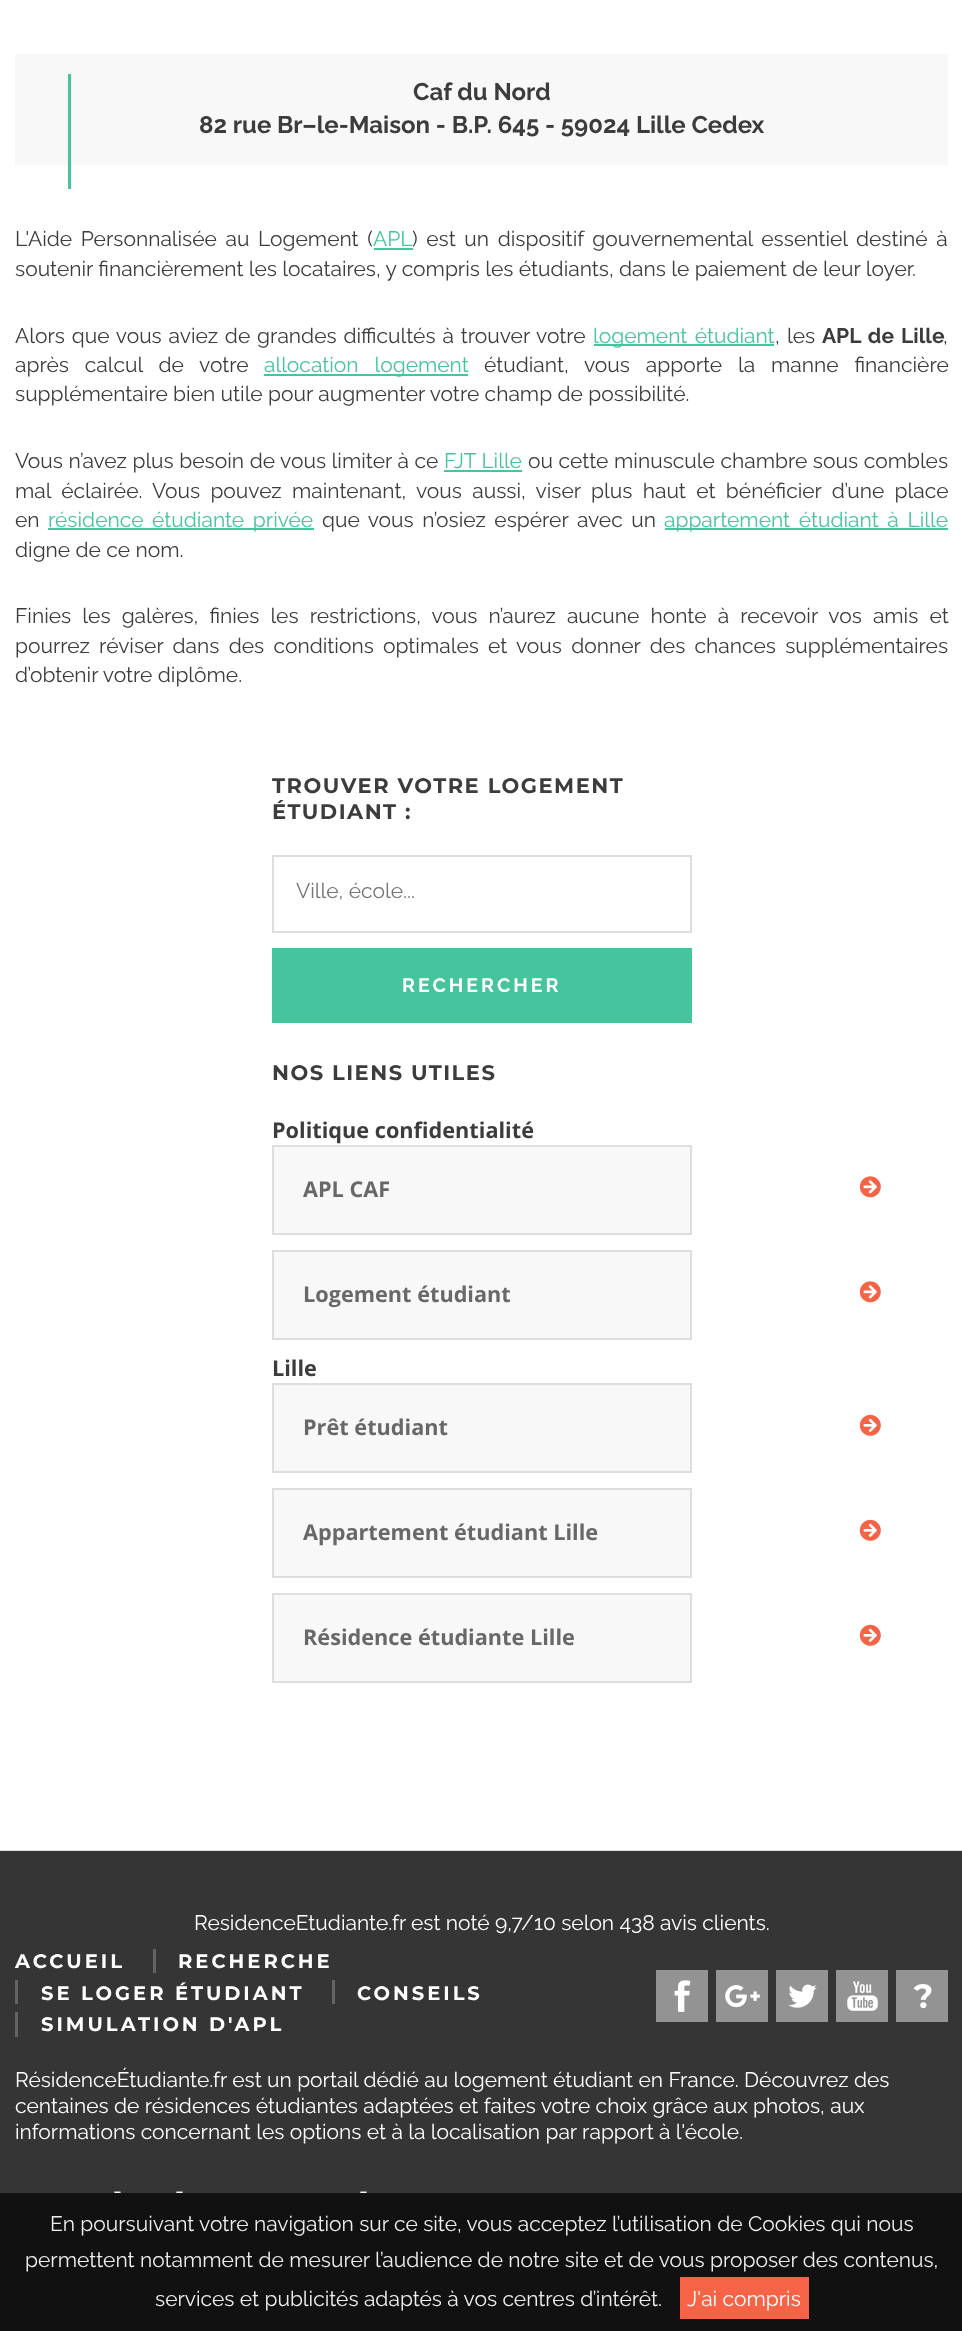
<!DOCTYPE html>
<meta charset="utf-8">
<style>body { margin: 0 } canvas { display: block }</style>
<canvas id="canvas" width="962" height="2331"></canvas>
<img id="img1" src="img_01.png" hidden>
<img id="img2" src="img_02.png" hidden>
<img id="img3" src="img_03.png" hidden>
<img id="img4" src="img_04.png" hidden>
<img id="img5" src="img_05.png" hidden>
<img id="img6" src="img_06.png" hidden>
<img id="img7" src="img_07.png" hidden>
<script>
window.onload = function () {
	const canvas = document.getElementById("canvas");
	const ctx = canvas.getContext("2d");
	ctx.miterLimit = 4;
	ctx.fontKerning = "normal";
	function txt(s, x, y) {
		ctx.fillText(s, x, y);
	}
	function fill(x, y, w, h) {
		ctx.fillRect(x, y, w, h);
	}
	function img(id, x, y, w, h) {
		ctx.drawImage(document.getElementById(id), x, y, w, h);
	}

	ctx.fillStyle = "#FFFFFF";
	fill(0, 0, 962, 2331);
	ctx.fillStyle = "#F8F8F8";
	fill(15, 54, 933, 111);
	ctx.fillStyle = "#45C49E";
	fill(68, 74, 3, 115);
	fill(374, 248, 39, 2);
	fill(594, 344, 180, 2);
	fill(264, 374, 204, 2);
	fill(444, 470, 78, 2);
	fill(48, 528, 266, 2);
	fill(665, 528, 283, 2);
	ctx.strokeStyle = "#DEDEDE";
	ctx.lineWidth = 2;
	ctx.strokeRect(273, 856, 418, 76);
	fill(272, 948, 420, 75);
	ctx.fillStyle = "#F8F8F8";
	ctx.beginPath();
	ctx.rect(273, 1146, 418, 88);
	ctx.fill();
	ctx.stroke();
	img("img1", 859, 1176, 22, 22);
	ctx.beginPath();
	ctx.rect(273, 1251, 418, 88);
	ctx.fill();
	ctx.stroke();
	img("img1", 859, 1281, 22, 22);
	ctx.beginPath();
	ctx.rect(273, 1384, 418, 88);
	ctx.fill();
	ctx.stroke();
	img("img2", 859, 1414, 22, 22);
	ctx.beginPath();
	ctx.rect(273, 1489, 418, 88);
	ctx.fill();
	ctx.stroke();
	img("img2", 859, 1519, 22, 22);
	ctx.beginPath();
	ctx.rect(273, 1594, 418, 88);
	ctx.fill();
	ctx.stroke();
	img("img2", 859, 1624, 22, 22);
	ctx.fillStyle = "#DEDEDE";
	fill(0, 1850, 962, 1);
	ctx.fillStyle = "#353535";
	fill(0, 1851, 962, 342);
	ctx.fillStyle = "#636363";
	fill(153, 1949, 3, 24);
	fill(15, 1980, 3, 24);
	fill(332, 1980, 3, 24);
	fill(15, 2012, 3, 25);
	ctx.fillStyle = "#939393";
	fill(656, 1970, 52, 52);
	img("img3", 674, 1980, 17, 32);
	fill(716, 1970, 52, 52);
	img("img4", 725, 1985, 35, 23);
	fill(776, 1970, 52, 52);
	img("img5", 788, 1984, 29, 24);
	fill(836, 1970, 52, 52);
	img("img6", 847, 1981, 31, 30);
	fill(896, 1970, 52, 52);
	img("img7", 913, 1984, 19, 25);
	ctx.fillStyle = "#111111";
	fill(0, 2193, 962, 138);
	ctx.fillStyle = "#F66346";
	fill(680, 2277, 129, 42);
	ctx.font = "bold 24px Raleway";
	ctx.fillStyle = "#3C3C3C";
	txt("Caf du Nord", 413, 100);
	txt("82 rue Br–le-Maison - B.P. 645 - 59024 Lille Cedex", 199, 133);
	ctx.wordSpacing = "3.25px";
	ctx.font = "21px Raleway";
	txt("L'Aide Personnalisée au Logement (", 15, 246);
	ctx.wordSpacing = "0px";
	ctx.fillStyle = "#45C49E";
	txt("APL", 373, 246);
	ctx.wordSpacing = "3.25px";
	ctx.fillStyle = "#3C3C3C";
	txt(") est un dispositif gouvernemental essentiel destiné à", 412, 246);
	ctx.wordSpacing = "0px";
	txt("soutenir financièrement les locataires, y compris les étudiants, dans le paiement de leur loyer.", 15, 276);
	ctx.wordSpacing = "1.5px";
	txt("Alors que vous aviez de grandes difficultés à trouver votre", 15, 343);
	ctx.wordSpacing = "2px";
	ctx.fillStyle = "#45C49E";
	txt("logement étudiant", 593, 343);
	ctx.fillStyle = "#3C3C3C";
	txt(", les", 775, 343);
	ctx.font = "bold 21px Raleway";
	txt("APL de Lille", 822, 343);
	ctx.wordSpacing = "0px";
	ctx.font = "21px Raleway";
	txt(",", 943, 343);
	ctx.wordSpacing = "10.5px";
	txt("après calcul de votre", 15, 372);
	ctx.fillStyle = "#45C49E";
	txt("allocation logement", 264, 372);
	ctx.fillStyle = "#3C3C3C";
	txt("étudiant, vous apporte la manne financière", 484, 372);
	ctx.wordSpacing = "0px";
	txt("supplémentaire bien utile pour augmenter votre champ de possibilité.", 15, 401);
	ctx.wordSpacing = "0.25px";
	txt("Vous n’avez plus besoin de vous limiter à ce", 15, 468);
	ctx.wordSpacing = "0px";
	ctx.fillStyle = "#45C49E";
	txt("FJT Lille", 444, 468);
	ctx.wordSpacing = "0.25px";
	ctx.fillStyle = "#3C3C3C";
	txt("ou cette minuscule chambre sous combles", 528, 468);
	ctx.wordSpacing = "5px";
	txt("mal éclairée. Vous pouvez maintenant, vous aussi, viser plus haut et bénéficier d’une place", 15, 498);
	ctx.wordSpacing = "0px";
	txt("en", 15, 527);
	ctx.wordSpacing = "3.25px";
	ctx.fillStyle = "#45C49E";
	txt("résidence étudiante privée", 48, 527);
	ctx.fillStyle = "#3C3C3C";
	txt("que vous n’osiez espérer avec un", 322, 527);
	ctx.fillStyle = "#45C49E";
	txt("appartement étudiant à Lille", 664, 527);
	ctx.wordSpacing = "0px";
	ctx.fillStyle = "#3C3C3C";
	txt("digne de ce nom.", 15, 557);
	ctx.wordSpacing = "5.75px";
	txt("Finies les galères, finies les restrictions, vous n’aurez aucune honte à recevoir vos amis et", 15, 623);
	ctx.wordSpacing = "3.9px";
	txt("pourrez réviser dans des conditions optimales et vous donner des chances supplémentaires", 15, 653);
	ctx.wordSpacing = "0px";
	txt("d’obtenir votre diplôme.", 15, 682);
	ctx.letterSpacing = "1.5px";
	ctx.font = "bold 21px Montserrat";
	txt("TROUVER VOTRE LOGEMENT", 272, 793);
	txt("ÉTUDIANT :", 272, 819);
	ctx.letterSpacing = "0px";
	ctx.font = "21px Raleway";
	ctx.fillStyle = "#757575";
	txt("Ville, école...", 296, 898);
	ctx.letterSpacing = "3px";
	ctx.font = "bold 19.5px Raleway";
	ctx.fillStyle = "#FFFFFF";
	txt("RECHERCHER", 402, 992);
	ctx.letterSpacing = "1.5px";
	ctx.font = "bold 21px Montserrat";
	ctx.fillStyle = "#3C3C3C";
	txt("NOS LIENS UTILES", 272, 1080);
	ctx.letterSpacing = "0px";
	ctx.font = "bold 21.7px Open Sans";
	txt("Politique confidentialité", 272, 1138);
	ctx.fillStyle = "#686868";
	txt("APL CAF", 303, 1197);
	txt("Logement étudiant", 303, 1302);
	ctx.fillStyle = "#3C3C3C";
	txt("Lille", 272, 1376);
	ctx.fillStyle = "#686868";
	txt("Prêt étudiant", 303, 1435);
	txt("Appartement étudiant Lille", 303, 1540);
	txt("Résidence étudiante Lille", 303, 1645);
	ctx.font = "21px Raleway";
	ctx.fillStyle = "#FFFFFF";
	txt("ResidenceEtudiante.fr", 194, 1930);
	txt("est noté 9,7", 411, 1930);
	txt("/", 521, 1930);
	txt("10 selon 438 avis clients.", 534, 1930);
	ctx.letterSpacing = "3px";
	ctx.font = "bold 19.5px Montserrat";
	txt("ACCUEIL", 15, 1968);
	txt("RECHERCHE", 178, 1968);
	txt("SE LOGER ÉTUDIANT", 41, 2000);
	txt("CONSEILS", 357, 2000);
	txt("SIMULATION D'APL", 41, 2031);
	ctx.letterSpacing = "0px";
	ctx.font = "21px Raleway";
	txt("RésidenceÉtudiante.fr est un portail dédié au logement étudiant en France. Découvrez des", 15, 2087);
	txt("centaines de résidences étudiantes adaptées et faites votre choix grâce aux photos, aux", 15, 2113);
	txt("informations concernant les options et à la localisation par rapport à l'école.", 15, 2139);
	txt("-", 113, 2198);
	txt("-", 175, 2198);
	txt("-", 359, 2198);
	ctx.fillStyle = "#EEEEEE";
	txt("En poursuivant votre navigation sur ce site, vous acceptez l’utilisation de Cookies qui nous", 50, 2231);
	txt("permettent notamment de mesurer l’audience de notre site et de vous proposer des contenus,", 25, 2267);
	txt("services et publicités adaptés à vos centres d’intérêt.", 155, 2306);
	ctx.fillStyle = "#FFFFFF";
	txt("J'ai compris", 687, 2306);
};
</script>
